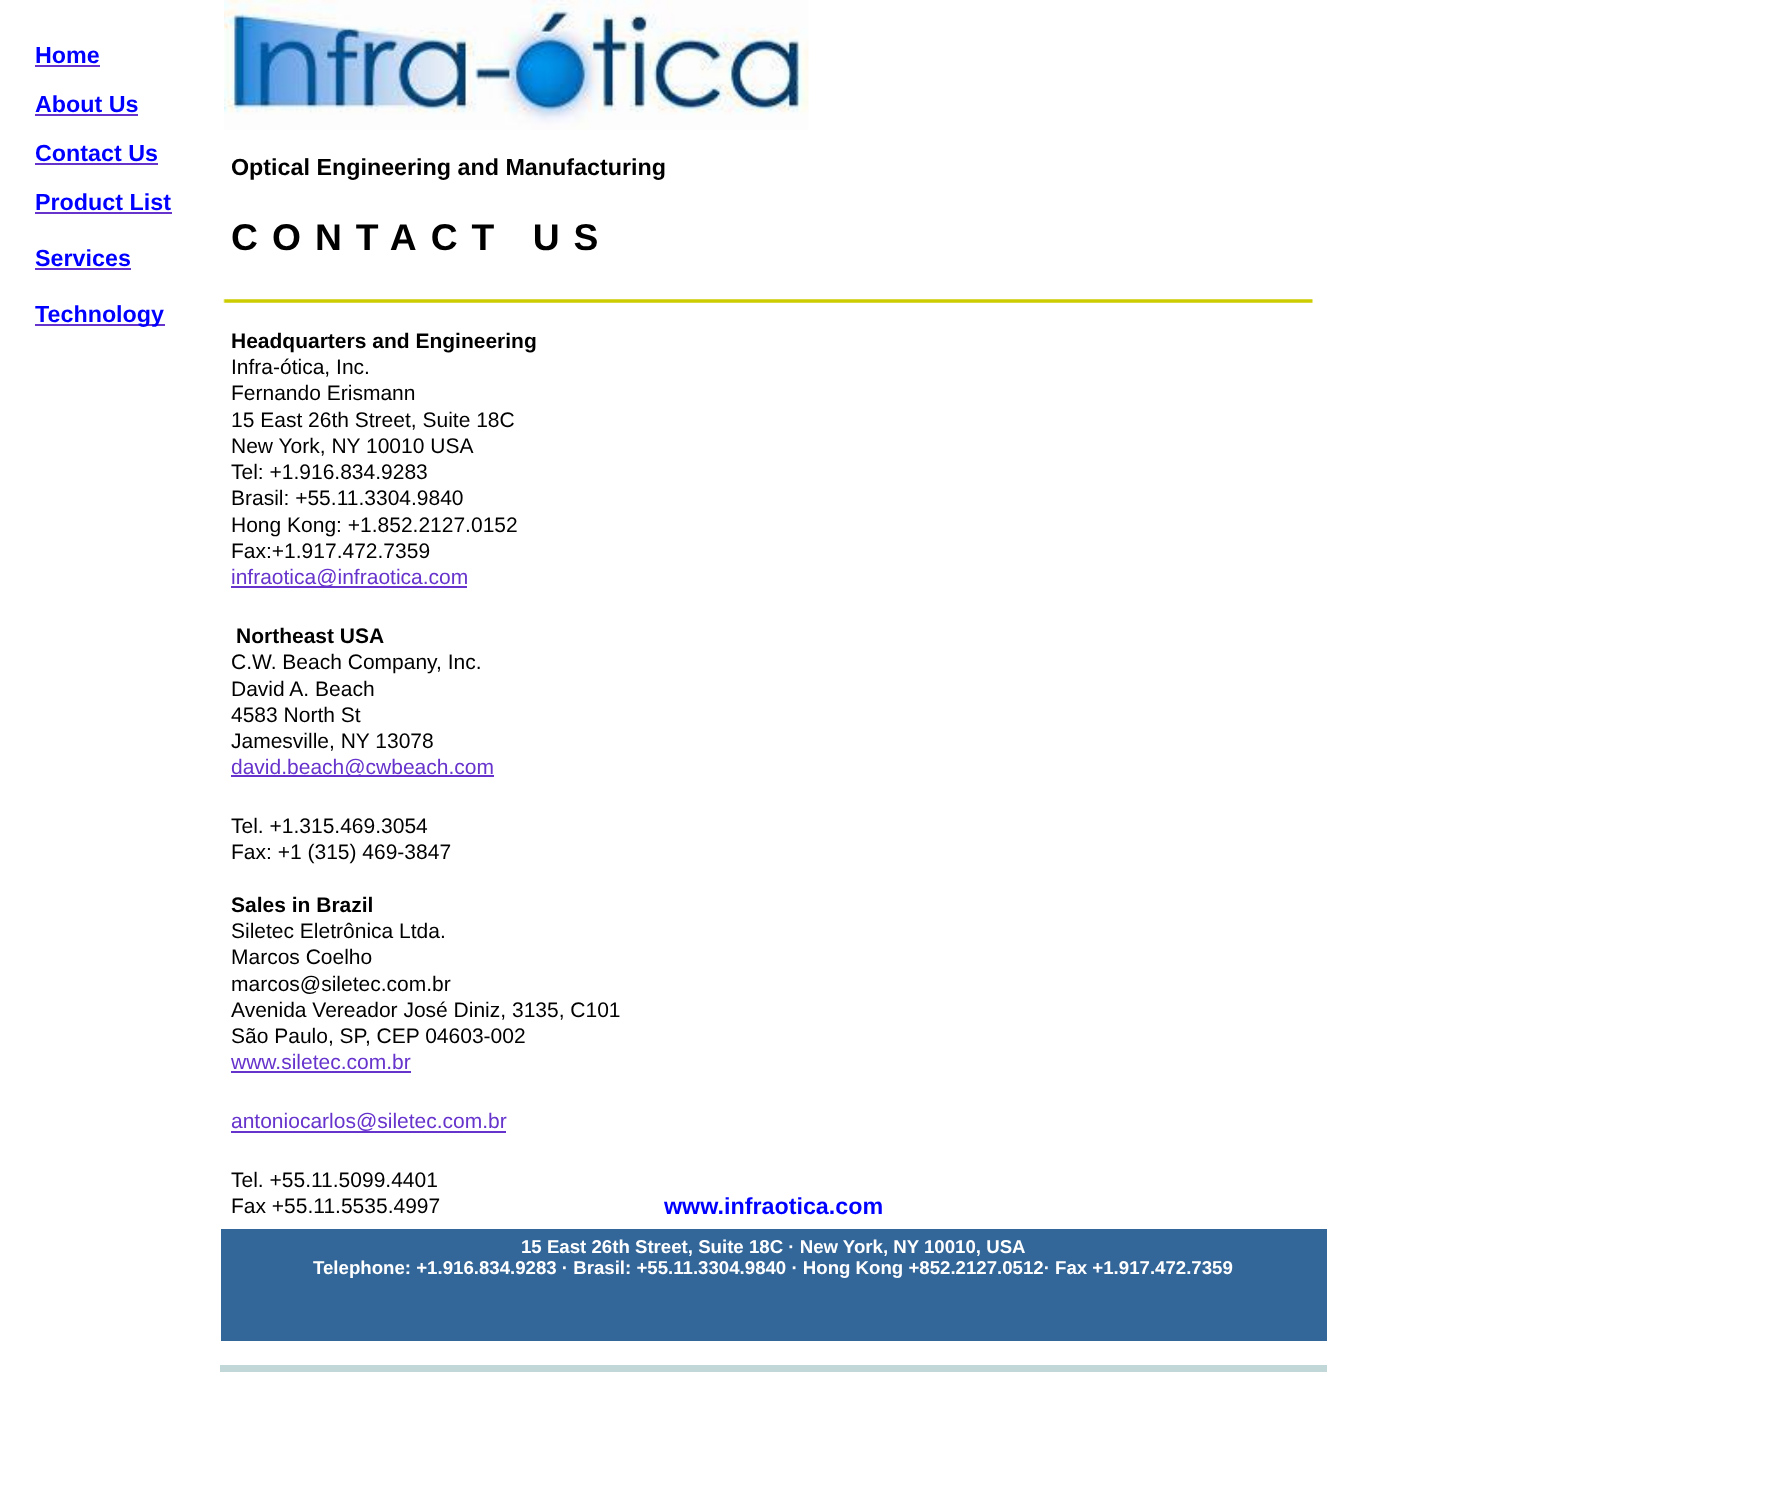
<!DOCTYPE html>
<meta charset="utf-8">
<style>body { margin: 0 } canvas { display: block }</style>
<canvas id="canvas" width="1766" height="1499"></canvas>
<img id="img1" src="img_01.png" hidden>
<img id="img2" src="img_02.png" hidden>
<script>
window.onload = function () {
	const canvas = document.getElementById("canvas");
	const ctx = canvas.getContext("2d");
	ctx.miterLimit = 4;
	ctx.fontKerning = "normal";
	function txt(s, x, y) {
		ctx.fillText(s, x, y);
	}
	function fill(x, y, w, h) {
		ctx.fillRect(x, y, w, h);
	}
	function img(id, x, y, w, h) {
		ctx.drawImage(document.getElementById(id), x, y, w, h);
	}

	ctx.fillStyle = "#FFFFFF";
	fill(0, 0, 1766, 1499);
	ctx.fillStyle = "#6633CC";
	fill(35, 65, 65, 2);
	img("img1", 224, 0, 585, 130);
	fill(35, 114, 103, 2);
	fill(35, 163, 123, 2);
	fill(35, 212, 137, 2);
	fill(35, 268, 96, 2);
	img("img2", 223, 299, 1090, 4);
	fill(35, 324, 130, 2);
	fill(231, 586, 236, 2);
	fill(231, 775, 263, 2);
	fill(231, 1071, 180, 2);
	fill(231, 1131, 275, 2);
	ctx.fillStyle = "#336699";
	fill(221, 1229, 1106, 112);
	ctx.fillStyle = "#C2D7D7";
	fill(220, 1365, 1107, 7);
	ctx.font = "bold 23.3px Liberation Sans";
	ctx.fillStyle = "#0000FF";
	txt("Home", 35, 63);
	txt("About Us", 35, 112);
	txt("Contact Us", 35, 161);
	ctx.fillStyle = "#000000";
	txt("Optical Engineering and Manufacturing", 231, 175);
	ctx.fillStyle = "#0000FF";
	txt("Product List", 35, 210);
	ctx.letterSpacing = "14px";
	ctx.font = "bold 37.25px Liberation Sans";
	ctx.fillStyle = "#000000";
	txt("CONTACT US", 231, 250);
	ctx.letterSpacing = "0px";
	ctx.font = "bold 23.3px Liberation Sans";
	ctx.fillStyle = "#0000FF";
	txt("Services", 35, 266);
	txt("Technology", 35, 322);
	ctx.font = "bold 21px Liberation Sans";
	ctx.fillStyle = "#000000";
	txt("Headquarters and Engineering", 231, 348);
	ctx.font = "21px Liberation Sans";
	txt("Infra-ótica, Inc.", 231, 374);
	txt("Fernando Erismann", 231, 400);
	txt("15 East 26th Street, Suite 18C", 231, 427);
	txt("New York, NY 10010 USA", 231, 453);
	txt("Tel: +1.916.834.9283", 231, 479);
	txt("Brasil: +55.11.3304.9840", 231, 505);
	txt("Hong Kong: +1.852.2127.0152", 231, 532);
	txt("Fax:+1.917.472.7359", 231, 558);
	ctx.fillStyle = "#6633CC";
	txt("infraotica@infraotica.com", 231, 584);
	ctx.font = "bold 21px Liberation Sans";
	ctx.fillStyle = "#000000";
	txt("Northeast USA", 236, 643);
	ctx.font = "21px Liberation Sans";
	txt("C.W. Beach Company, Inc.", 231, 669);
	txt("David A. Beach", 231, 696);
	txt("4583 North St", 231, 722);
	txt("Jamesville, NY 13078", 231, 748);
	ctx.fillStyle = "#6633CC";
	txt("david.beach@cwbeach.com", 231, 774);
	ctx.fillStyle = "#000000";
	txt("Tel. +1.315.469.3054", 231, 833);
	txt("Fax: +1 (315) 469-3847", 231, 859);
	ctx.font = "bold 21px Liberation Sans";
	txt("Sales in Brazil", 231, 912);
	ctx.font = "21px Liberation Sans";
	txt("Siletec Eletrônica Ltda.", 231, 938);
	txt("Marcos Coelho", 231, 964);
	txt("marcos@siletec.com.br", 231, 991);
	txt("Avenida Vereador José Diniz, 3135, C101", 231, 1017);
	txt("São Paulo, SP, CEP 04603-002", 231, 1043);
	ctx.fillStyle = "#6633CC";
	txt("www.siletec.com.br", 231, 1069);
	txt("antoniocarlos@siletec.com.br", 231, 1128);
	ctx.fillStyle = "#000000";
	txt("Tel. +55.11.5099.4401", 231, 1187);
	txt("Fax +55.11.5535.4997", 231, 1213);
	ctx.font = "bold 23.3px Liberation Sans";
	ctx.fillStyle = "#0000FF";
	txt("www.infraotica.com", 664, 1214);
	ctx.font = "bold 18.65px Liberation Sans";
	ctx.fillStyle = "#FFFFFF";
	txt("15 East 26th Street, Suite 18C · New York, NY 10010, USA", 521, 1253);
	txt("Telephone: +1.916.834.9283 · Brasil: +55.11.3304.9840 · Hong Kong +852.2127.0512· Fax +1.917.472.7359", 313, 1274);
};
</script>
